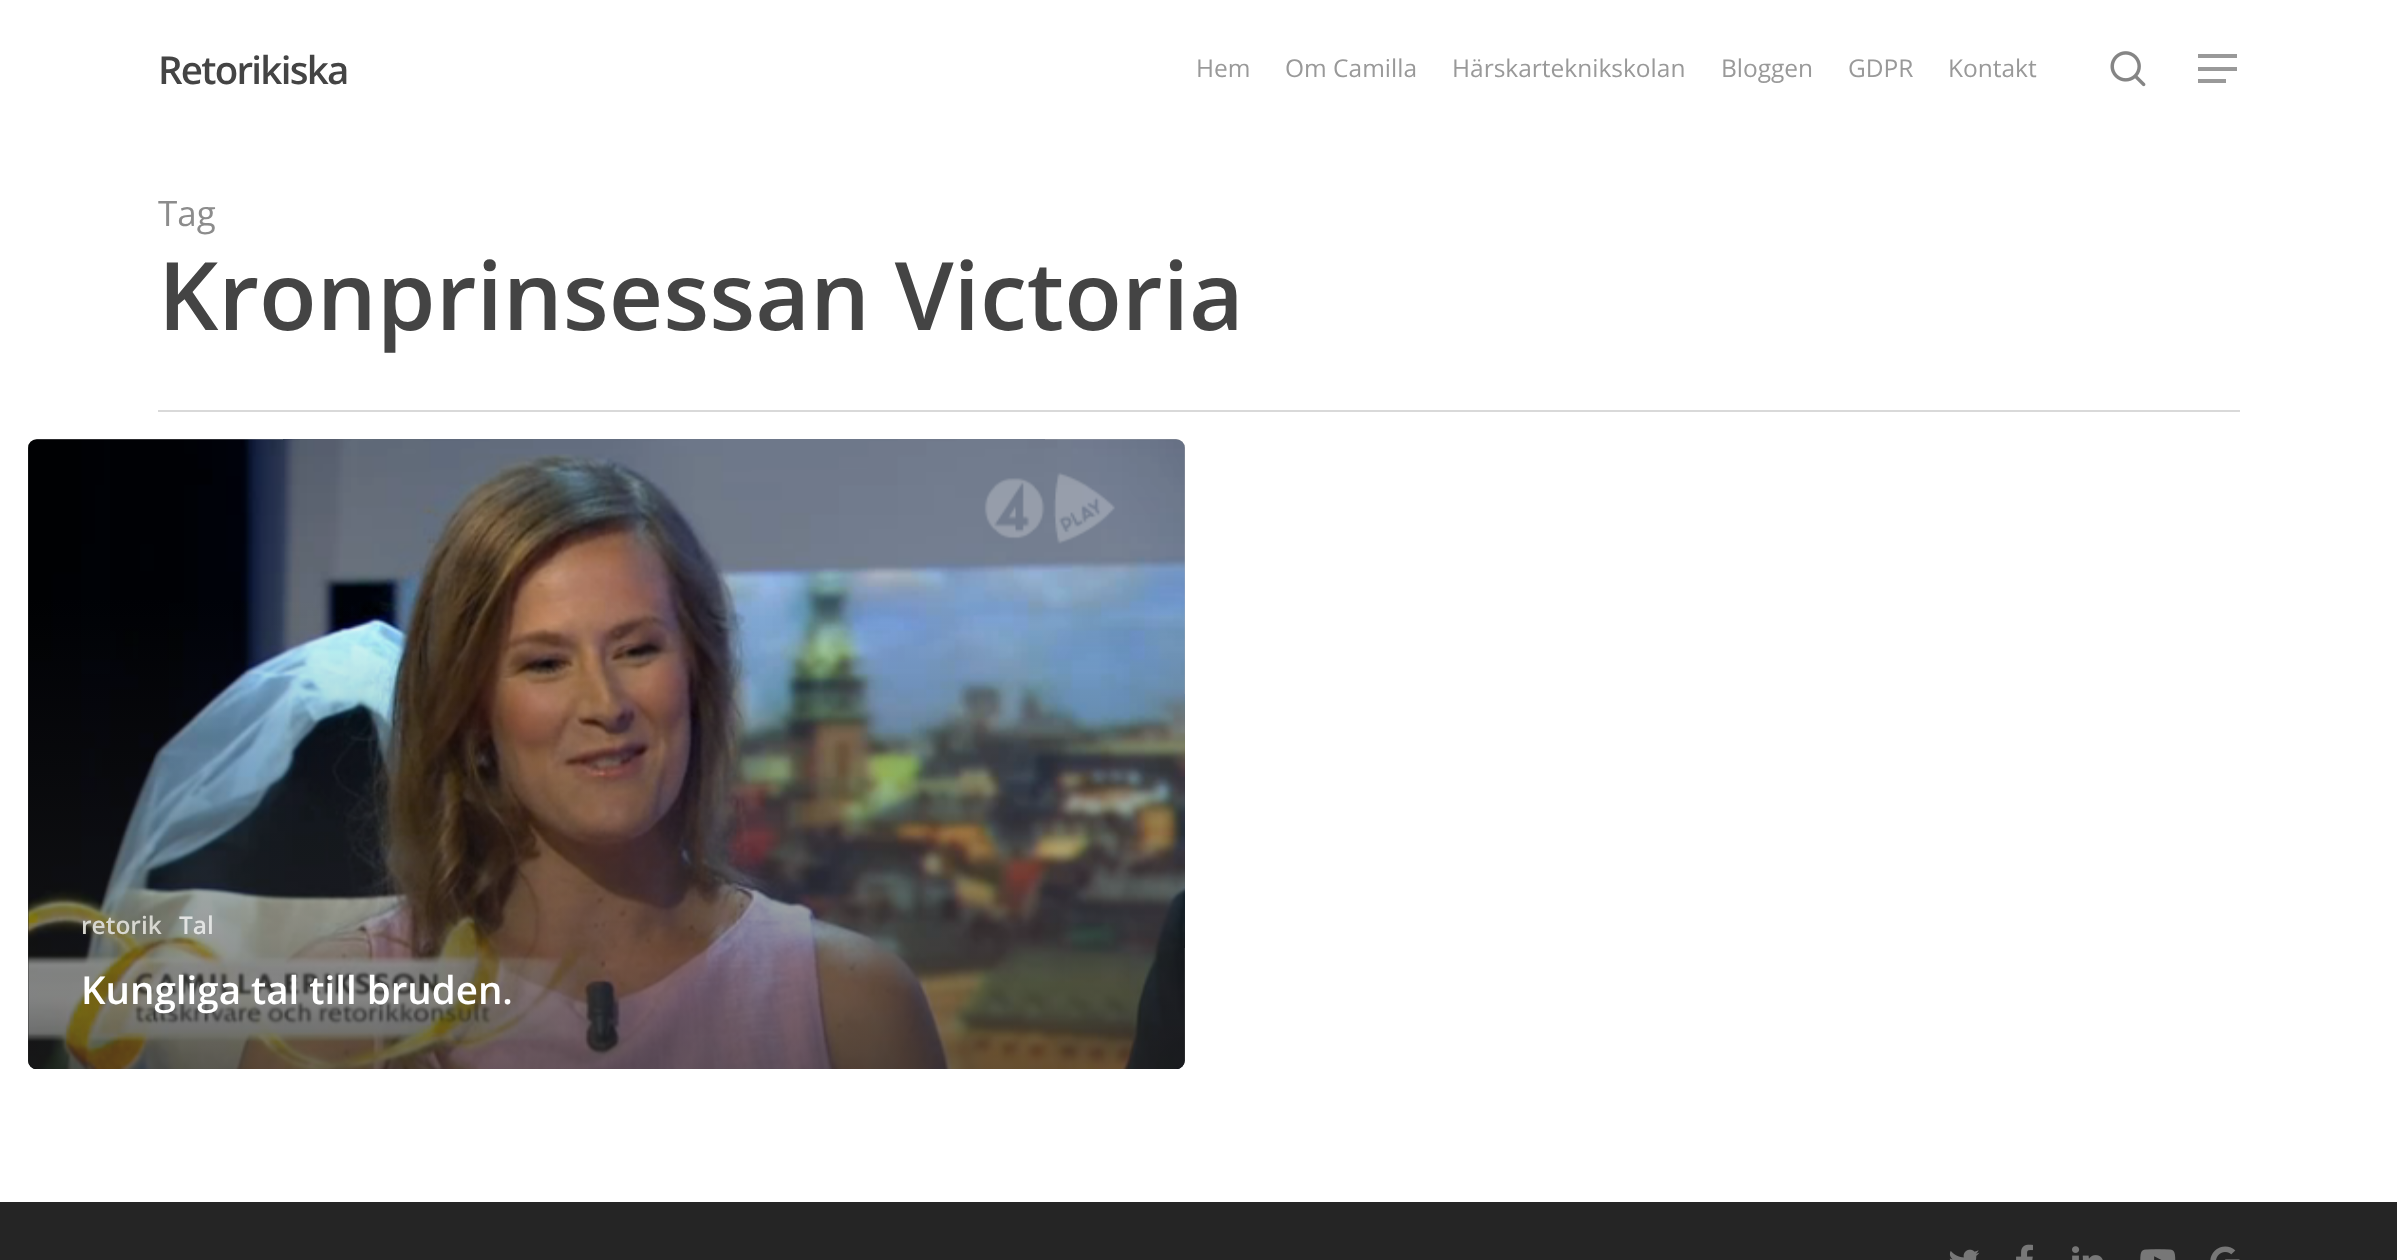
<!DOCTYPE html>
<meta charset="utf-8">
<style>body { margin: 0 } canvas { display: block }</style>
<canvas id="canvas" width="2397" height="1260"></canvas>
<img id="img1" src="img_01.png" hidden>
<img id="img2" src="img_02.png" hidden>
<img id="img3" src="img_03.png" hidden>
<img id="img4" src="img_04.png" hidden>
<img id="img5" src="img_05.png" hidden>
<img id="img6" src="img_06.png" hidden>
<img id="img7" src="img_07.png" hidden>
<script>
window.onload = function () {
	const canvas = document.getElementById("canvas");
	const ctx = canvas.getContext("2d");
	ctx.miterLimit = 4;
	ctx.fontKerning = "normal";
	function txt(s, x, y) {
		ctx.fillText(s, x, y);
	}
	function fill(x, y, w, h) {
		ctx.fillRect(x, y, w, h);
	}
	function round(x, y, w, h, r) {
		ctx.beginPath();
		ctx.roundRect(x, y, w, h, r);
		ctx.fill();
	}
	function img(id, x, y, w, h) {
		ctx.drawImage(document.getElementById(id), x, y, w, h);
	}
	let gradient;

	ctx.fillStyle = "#FFFFFF";
	fill(0, 0, 2397, 1260);
	img("img1", 2110, 51, 36, 36);
	ctx.fillStyle = "#999999";
	fill(2198, 54, 39, 4);
	fill(2198, 79, 28, 4);
	fill(2198, 67, 39, 4);
	ctx.fillStyle = "#D9D9D9";
	fill(158, 410, 2082, 2);
	ctx.fillStyle = "#B3B3B3";
	round(28, 439, 1157, 630, 9);
	img("img2", 28, 439, 1157, 630);
	gradient = ctx.createLinearGradient(609, 599, 609, 1073);
	gradient.addColorStop(0, "rgba(35, 35, 35, 0)");
	gradient.addColorStop(1, "rgba(35, 35, 35, 0.65)");
	ctx.fillStyle = gradient;
	ctx.beginPath();
	ctx.roundRect(28, 599, 1157, 470, [0, 0, 9, 9]);
	ctx.fill();
	ctx.fillStyle = "#252525";
	fill(0, 1202, 2397, 58);
	img("img3", 1949, 1249, 31, 11);
	img("img4", 2016, 1244, 17, 16);
	img("img5", 2072, 1246, 31, 14);
	img("img6", 2140, 1249, 36, 11);
	img("img7", 2210, 1246, 30, 14);
	ctx.letterSpacing = "-1.75px";
	ctx.font = "600 38.5px Open Sans";
	ctx.fillStyle = "#444444";
	txt("Retorikiska", 158, 84);
	ctx.letterSpacing = "0px";
	ctx.font = "24.5px Open Sans";
	ctx.fillStyle = "#999999";
	txt("Hem", 1196, 77);
	txt("Om Camilla", 1285, 77);
	txt("Härskarteknikskolan", 1452, 77);
	txt("Bloggen", 1721, 77);
	txt("GDPR", 1848, 77);
	txt("Kontakt", 1948, 77);
	ctx.font = "35px Open Sans";
	ctx.fillStyle = "#8C8C8C";
	txt("Tag", 158, 226);
	ctx.font = "600 94.5px Open Sans";
	ctx.fillStyle = "#444444";
	txt("Kronprinsessan Victoria", 158, 330);
	ctx.font = "600 24.5px Open Sans";
	ctx.fillStyle = "#D7D7D0";
	txt("retorik", 81, 934);
	ctx.fillStyle = "#E1E3E2";
	txt("Tal", 179, 934);
	ctx.font = "600 38.5px Open Sans";
	ctx.fillStyle = "#FFFFFF";
	txt("Kungliga tal till bruden.", 81, 1004);
};
</script>
